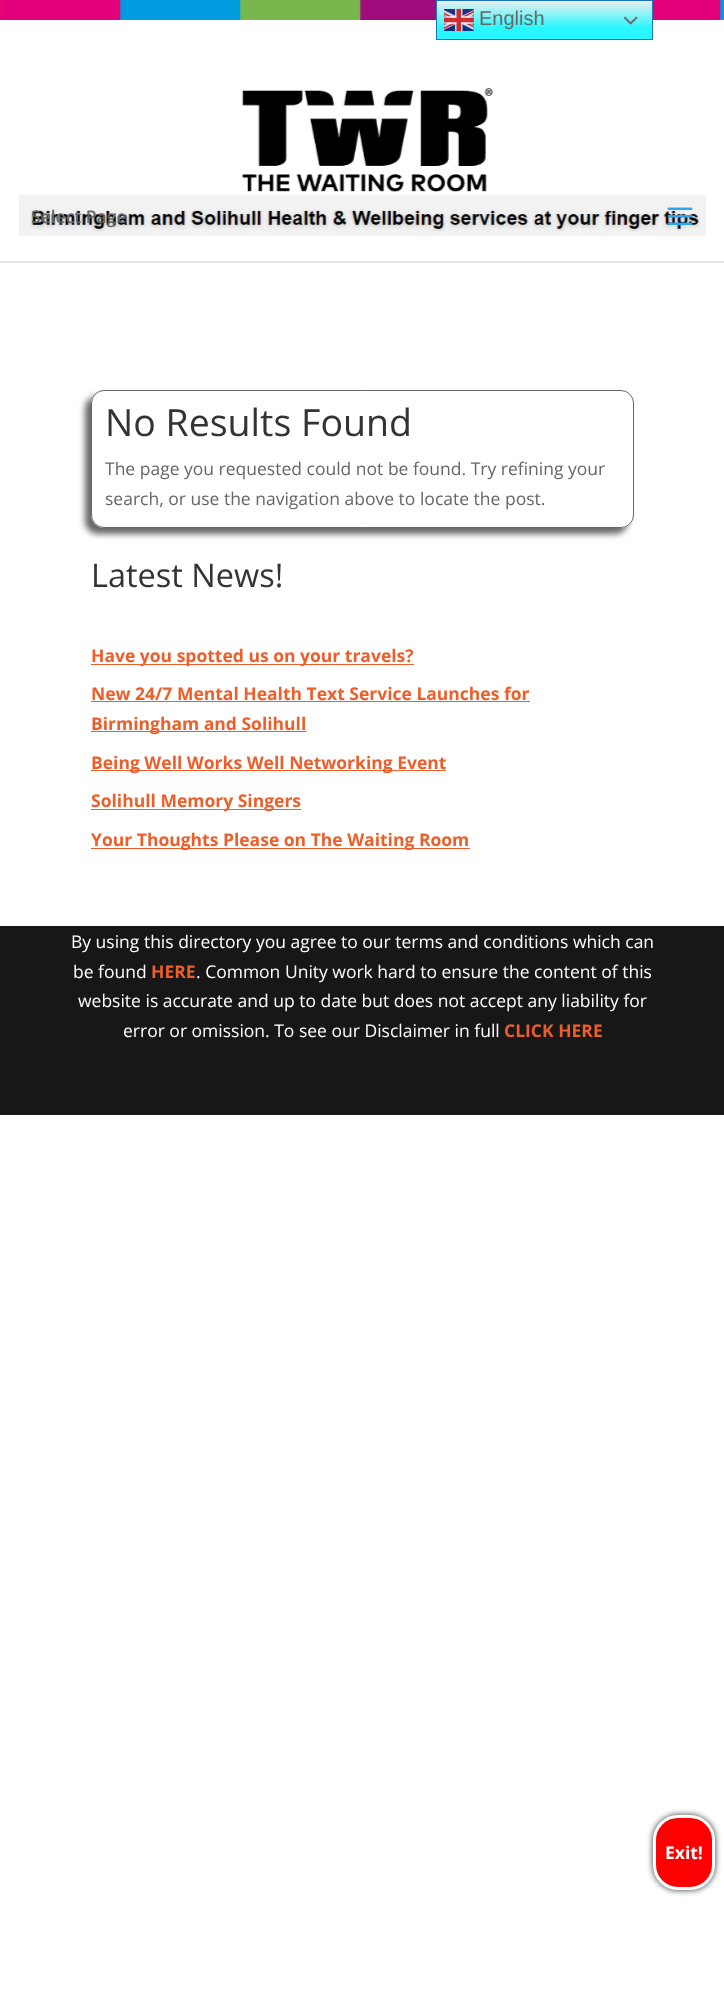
<!DOCTYPE html>
<meta charset="utf-8">
<style>body { margin: 0 } canvas { display: block }</style>
<canvas id="canvas" width="724" height="2002"></canvas>
<img id="img1" src="img_03.png" hidden>
<img id="img2" src="img_01.png" hidden>
<img id="img3" src="img_02.png" hidden>
<img id="img4" src="img_04.png" hidden>
<img id="img5" src="img_05.png" hidden>
<script>
window.onload = function () {
	const canvas = document.getElementById("canvas");
	const ctx = canvas.getContext("2d");
	ctx.miterLimit = 4;
	ctx.fontKerning = "normal";
	function txt(s, x, y) {
		ctx.fillText(s, x, y);
	}
	function fill(x, y, w, h) {
		ctx.fillRect(x, y, w, h);
	}
	function img(id, x, y, w, h) {
		ctx.drawImage(document.getElementById(id), x, y, w, h);
	}
	let gradient;

	ctx.fillStyle = "#FFFFFF";
	fill(0, 0, 724, 2002);
	img("img1", 0, 0, 724, 20);
	gradient = ctx.createLinearGradient(544, 0, 544, 40);
	gradient.addColorStop(0, "#EFEFEF");
	gradient.addColorStop(0.7, "#28F7FF");
	ctx.fillStyle = gradient;
	fill(437, 1, 215, 38);
	ctx.strokeStyle = "#1E73BE";
	ctx.strokeRect(436.5, 0.5, 216, 39);
	img("img2", 444, 8, 30, 24);
	img("img3", 624, 16, 14, 9);
	ctx.fillStyle = "#E6E6E6";
	fill(0, 261, 724, 2);
	img("img4", 30, 88, 671, 144);
	ctx.fillStyle = "rgba(0, 0, 0, 0.05)";
	fill(19, 195, 687, 41);
	img("img5", 667, 207, 26, 18);
	ctx.save();
	ctx.beginPath();
	ctx.moveTo(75, 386);
	ctx.lineTo(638, 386);
	ctx.lineTo(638, 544);
	ctx.lineTo(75, 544);
	ctx.closePath();
	ctx.moveTo(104, 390);
	ctx.lineTo(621, 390);
	ctx.bezierCurveTo(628, 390, 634, 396, 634, 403);
	ctx.lineTo(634, 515);
	ctx.bezierCurveTo(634, 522, 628, 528, 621, 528);
	ctx.lineTo(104, 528);
	ctx.bezierCurveTo(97, 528, 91, 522, 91, 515);
	ctx.lineTo(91, 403);
	ctx.bezierCurveTo(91, 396, 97, 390, 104, 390);
	ctx.closePath();
	ctx.clip("evenodd");
	ctx.fillStyle = "#666666";
	ctx.filter = "blur(3px)";
	ctx.beginPath();
	ctx.roundRect(85, 396, 543, 138, 13);
	ctx.fill();
	ctx.filter = "none";
	ctx.restore();
	ctx.beginPath();
	ctx.roundRect(91.5, 390.5, 542, 137, 12.5);
	ctx.strokeStyle = "#666666";
	ctx.stroke();
	ctx.fillStyle = "#EE5E2A";
	fill(91, 664, 323, 1);
	fill(91, 701, 439, 1);
	fill(91, 731, 215, 1);
	fill(91, 770, 355, 1);
	fill(91, 809, 210, 1);
	fill(91, 848, 379, 1);
	ctx.fillStyle = "#171717";
	fill(0, 926, 724, 189);
	ctx.fillStyle = "#333333";
	ctx.filter = "blur(3px)";
	ctx.beginPath();
	ctx.roundRect(653, 1815, 62, 75, 25);
	ctx.fill();
	ctx.filter = "none";
	ctx.fillStyle = "#FF0000";
	ctx.beginPath();
	ctx.roundRect(654.5, 1816.5, 59, 72, 23.5);
	ctx.fill();
	ctx.strokeStyle = "#FFFFFF";
	ctx.lineWidth = 3;
	ctx.stroke();
	ctx.font = "20px Liberation Sans";
	ctx.fillStyle = "#666666";
	txt("English", 479, 25);
	ctx.font = "600 17.5px Open Sans";
	txt("Select Page", 31, 223);
	ctx.font = "37.5px Open Sans";
	ctx.fillStyle = "#333333";
	txt("No Results Found", 105, 436);
	ctx.font = "17.5px Open Sans";
	ctx.fillStyle = "#666666";
	txt("The page you requested could not be found. Try refining your", 105, 475);
	txt("search, or use the navigation above to locate the post.", 105, 505);
	ctx.font = "32.5px Open Sans";
	ctx.fillStyle = "#333333";
	txt("Latest News!", 91, 587);
	ctx.font = "bold 17.5px Open Sans";
	ctx.fillStyle = "#EE5E2A";
	txt("Have you spotted us on your travels?", 91, 662);
	txt("New 24/7 Mental Health Text Service Launches for", 91, 700);
	txt("Birmingham and Solihull", 91, 730);
	txt("Being Well Works Well Networking Event", 91, 769);
	txt("Solihull Memory Singers", 91, 807);
	txt("Your Thoughts Please on The Waiting Room", 91, 846);
	ctx.font = "17.5px Open Sans";
	ctx.fillStyle = "#FFFFFF";
	txt("By using this directory you agree to our terms and conditions which can", 71, 948);
	txt("be found", 73, 978);
	ctx.font = "bold 17.5px Open Sans";
	ctx.fillStyle = "#EE5E2A";
	txt("HERE", 151, 978);
	ctx.font = "17.5px Open Sans";
	ctx.fillStyle = "#FFFFFF";
	txt(". Common Unity work hard to ensure the content of this", 196, 978);
	txt("website is accurate and up to date but does not accept any liability for", 78, 1007);
	txt("error or omission. To see our Disclaimer in full", 123, 1037);
	ctx.font = "bold 17.5px Open Sans";
	ctx.fillStyle = "#EE5E2A";
	txt("CLICK HERE", 504, 1037);
	ctx.fillStyle = "#FFFFFF";
	txt("Exit!", 665, 1859);
};
</script>
